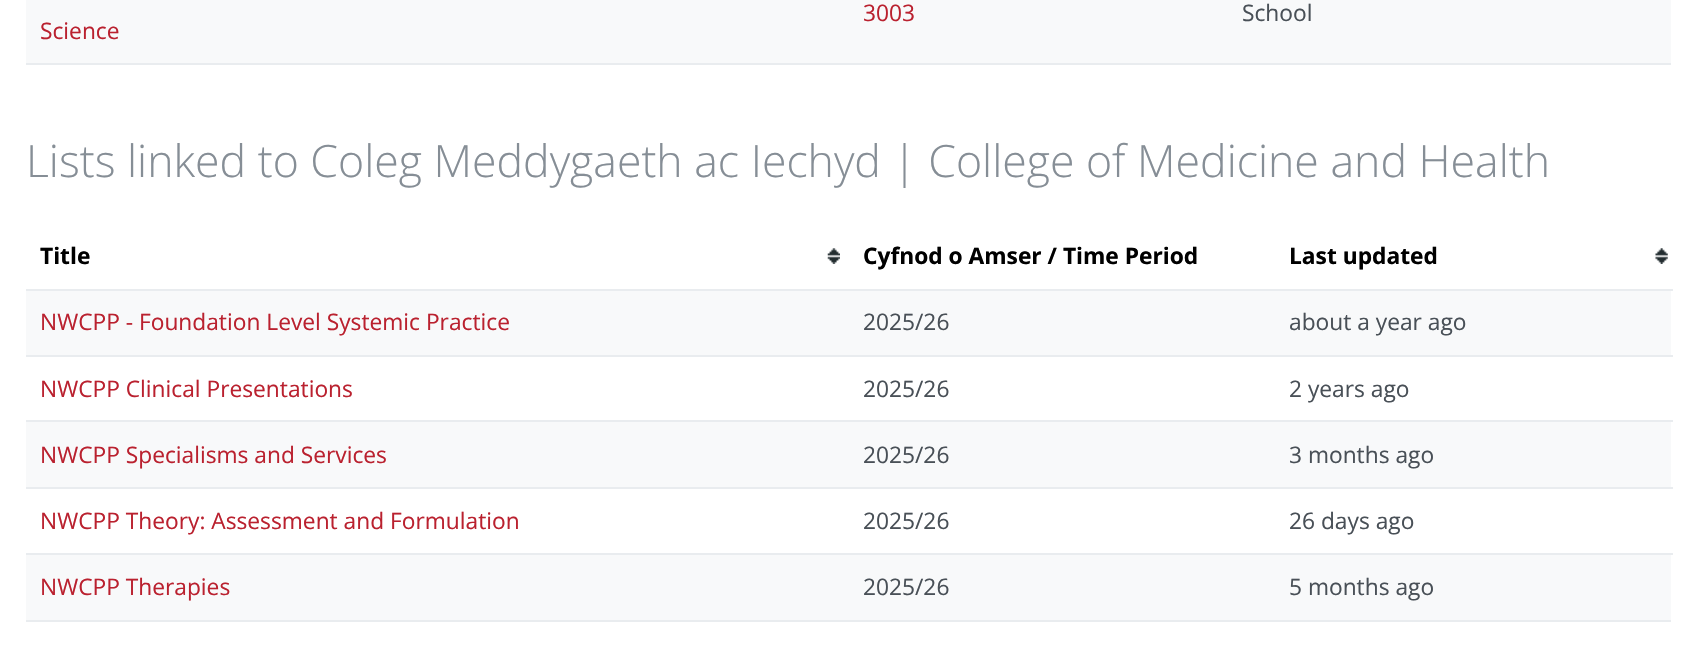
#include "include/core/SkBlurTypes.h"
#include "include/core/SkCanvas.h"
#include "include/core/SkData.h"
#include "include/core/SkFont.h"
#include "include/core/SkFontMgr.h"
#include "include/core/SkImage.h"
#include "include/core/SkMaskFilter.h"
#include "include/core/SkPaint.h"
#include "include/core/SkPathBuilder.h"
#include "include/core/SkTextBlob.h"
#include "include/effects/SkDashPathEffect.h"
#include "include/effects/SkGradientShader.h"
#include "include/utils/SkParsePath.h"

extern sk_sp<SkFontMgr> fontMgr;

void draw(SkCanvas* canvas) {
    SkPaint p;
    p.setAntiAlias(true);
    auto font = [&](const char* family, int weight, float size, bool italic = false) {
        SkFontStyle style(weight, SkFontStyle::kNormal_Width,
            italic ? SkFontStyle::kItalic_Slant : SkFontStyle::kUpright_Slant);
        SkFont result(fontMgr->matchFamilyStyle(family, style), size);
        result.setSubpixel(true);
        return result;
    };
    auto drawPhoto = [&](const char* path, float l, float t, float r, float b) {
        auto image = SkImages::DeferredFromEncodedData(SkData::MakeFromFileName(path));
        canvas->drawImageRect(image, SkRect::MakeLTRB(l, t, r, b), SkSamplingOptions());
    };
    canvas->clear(0xFFFFFFFF);
    p.setColor(0xFFE9ECEF);
    canvas->drawRect(SkRect::MakeLTRB(26, 63, 1671, 65), p);
    p.setColor(0xFFF8F9FA);
    canvas->drawRect(SkRect::MakeLTRB(26, 0, 1671, 63), p);
    auto font1 = font("Open Sans", 400, 22.75f);
    p.setColor(0xFFBA212F);
    canvas->drawString("3003", 863, 21, font1, p);
    p.setColor(0xFF495057);
    canvas->drawString("School", 1242, 21, font1, p);
    p.setColor(0xFFBA212F);
    canvas->drawString("Science", 40, 39, font1, p);
    auto font2 = font("Open Sans", 300, 44.6f);
    p.setColor(0xFF868E96);
    canvas->drawString("Lists linked to Coleg Meddygaeth ac Iechyd | College of Medicine and Health", 26, 177, font2, p);
    p.setColor(0xFFE9ECEF);
    canvas->drawRect(SkRect::MakeLTRB(26, 620, 1671, 622), p);
    drawPhoto("media/1.png", 827, 248, 840, 264);
    auto font3 = font("Open Sans", 700, 22.75f);
    p.setColor(0xFF000000);
    canvas->drawString("Title", 40, 264, font3, p);
    canvas->drawString("Cyfnod o Amser / Time Period", 863, 264, font3, p);
    drawPhoto("media/2.png", 1655, 248, 1668, 264);
    canvas->drawString("Last updated", 1289, 264, font3, p);
    p.setColor(0xFFF8F9FA);
    canvas->drawRect(SkRect::MakeLTRB(26, 291, 1671, 355), p);
    p.setColor(0xFFBA212F);
    canvas->drawString("NWCPP - Foundation Level Systemic Practice", 40, 330, font1, p);
    p.setColor(0xFF495057);
    canvas->drawString("2025/26", 863, 330, font1, p);
    p.setColor(0xFFE9ECEF);
    canvas->drawRect(SkRect::MakeLTRB(26, 289, 1673, 291), p);
    p.setColor(0xFF495057);
    canvas->drawString("about a year ago", 1289, 330, font1, p);
    p.setColor(0xFFBA212F);
    canvas->drawString("NWCPP Clinical Presentations", 40, 397, font1, p);
    p.setColor(0xFF495057);
    canvas->drawString("2025/26", 863, 397, font1, p);
    p.setColor(0xFFE9ECEF);
    canvas->drawRect(SkRect::MakeLTRB(26, 355, 1673, 357), p);
    p.setColor(0xFF495057);
    canvas->drawString("2 years ago", 1289, 397, font1, p);
    p.setColor(0xFFF8F9FA);
    canvas->drawRect(SkRect::MakeLTRB(26, 422, 1671, 487), p);
    p.setColor(0xFFBA212F);
    canvas->drawString("NWCPP Specialisms and Services", 40, 463, font1, p);
    p.setColor(0xFF495057);
    canvas->drawString("2025/26", 863, 463, font1, p);
    p.setColor(0xFFE9ECEF);
    canvas->drawRect(SkRect::MakeLTRB(26, 420, 1673, 422), p);
    p.setColor(0xFF495057);
    canvas->drawString("3 months ago", 1289, 463, font1, p);
    p.setColor(0xFFBA212F);
    canvas->drawString("NWCPP Theory: Assessment and Formulation", 40, 529, font1, p);
    p.setColor(0xFF495057);
    canvas->drawString("2025/26", 863, 529, font1, p);
    p.setColor(0xFFE9ECEF);
    canvas->drawRect(SkRect::MakeLTRB(26, 487, 1673, 489), p);
    p.setColor(0xFF495057);
    canvas->drawString("26 days ago", 1289, 529, font1, p);
    p.setColor(0xFFF8F9FA);
    canvas->drawRect(SkRect::MakeLTRB(26, 555, 1671, 620), p);
    p.setColor(0xFFBA212F);
    canvas->drawString("NWCPP Therapies", 40, 595, font1, p);
    p.setColor(0xFF495057);
    canvas->drawString("2025/26", 863, 595, font1, p);
    p.setColor(0xFFE9ECEF);
    canvas->drawRect(SkRect::MakeLTRB(26, 553, 1673, 555), p);
    p.setColor(0xFF495057);
    canvas->drawString("5 months ago", 1289, 595, font1, p);
}
